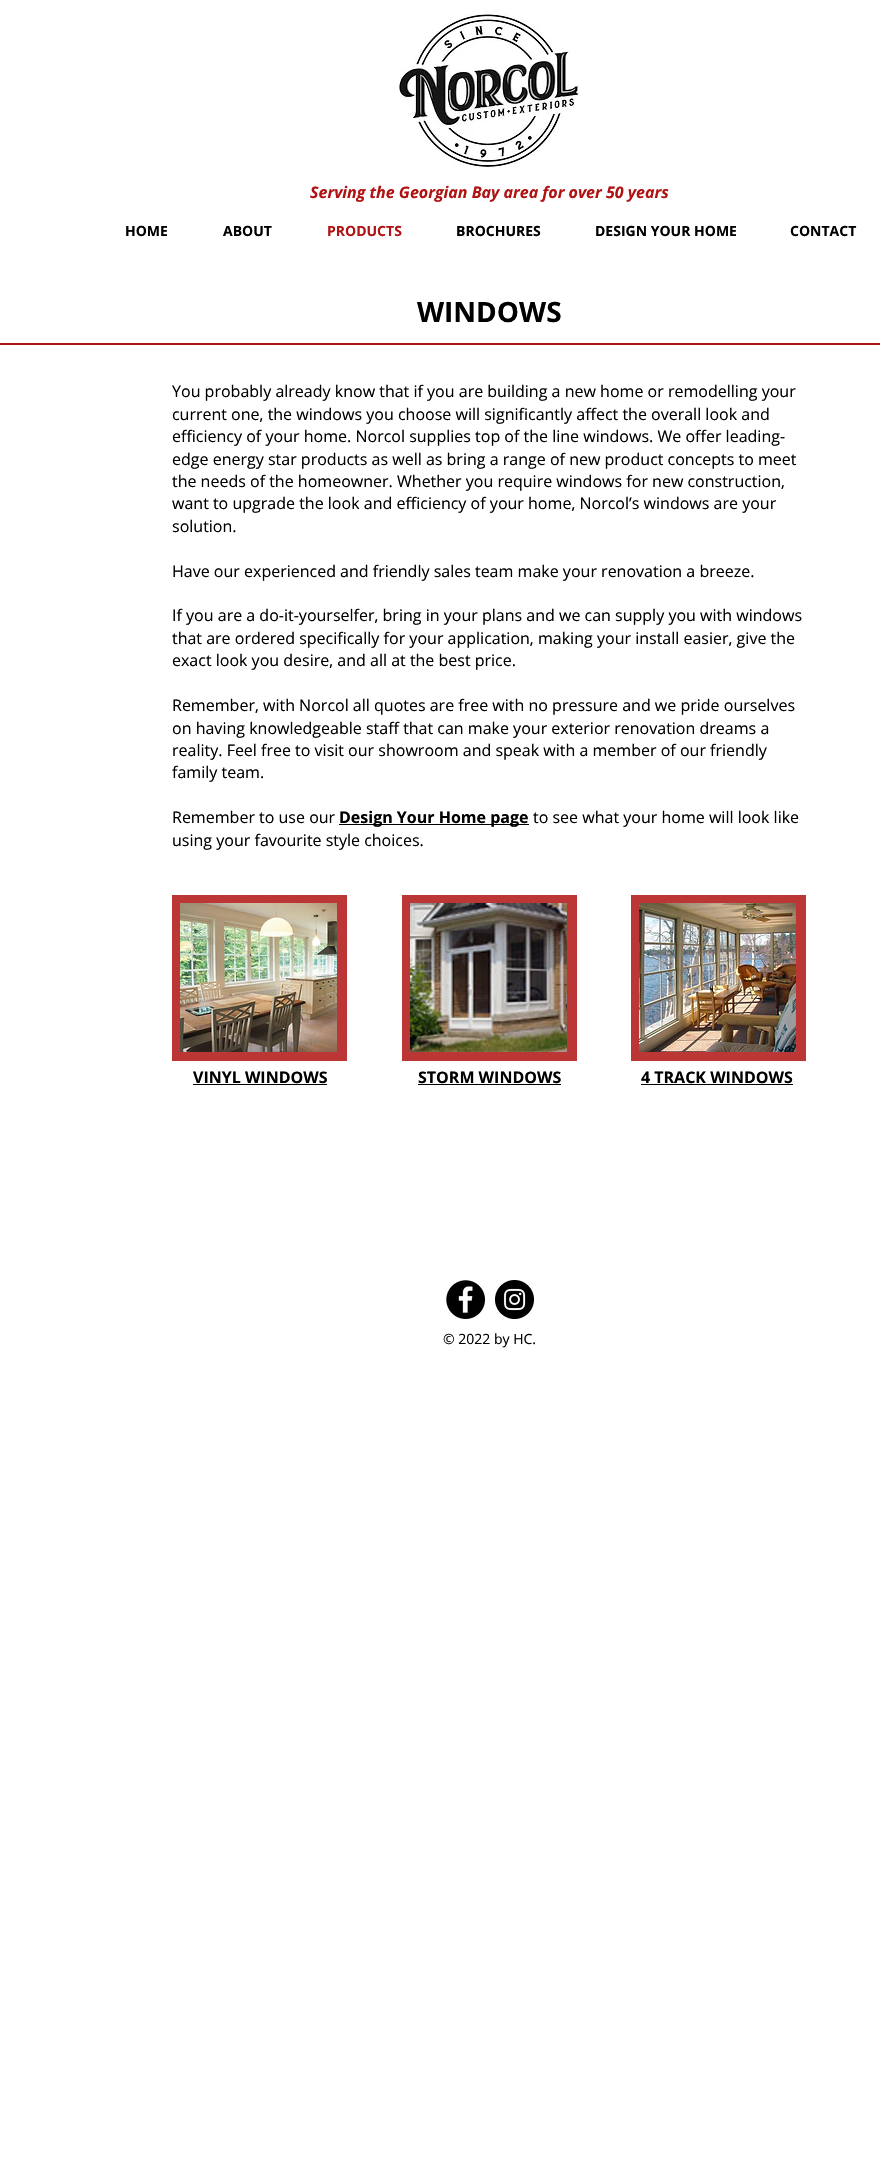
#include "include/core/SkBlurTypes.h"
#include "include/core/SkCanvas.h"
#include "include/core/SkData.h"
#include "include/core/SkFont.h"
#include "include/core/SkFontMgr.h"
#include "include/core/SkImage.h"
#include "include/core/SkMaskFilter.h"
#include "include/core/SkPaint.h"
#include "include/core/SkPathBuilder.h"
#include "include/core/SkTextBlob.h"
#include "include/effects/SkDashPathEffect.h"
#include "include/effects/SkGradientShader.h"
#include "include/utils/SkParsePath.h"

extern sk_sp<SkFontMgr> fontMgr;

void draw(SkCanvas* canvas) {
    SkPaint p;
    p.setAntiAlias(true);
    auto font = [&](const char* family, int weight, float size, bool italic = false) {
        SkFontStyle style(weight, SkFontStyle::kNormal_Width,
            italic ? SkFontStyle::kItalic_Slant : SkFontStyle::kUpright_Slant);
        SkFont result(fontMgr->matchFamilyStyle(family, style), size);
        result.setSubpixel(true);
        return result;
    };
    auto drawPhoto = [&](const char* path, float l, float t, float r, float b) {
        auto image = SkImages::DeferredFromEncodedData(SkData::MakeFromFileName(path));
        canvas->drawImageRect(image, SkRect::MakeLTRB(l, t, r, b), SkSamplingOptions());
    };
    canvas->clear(0xFFFFFFFF);
    drawPhoto("media/1.png", 399, 14, 579, 169);
    auto font1 = font("Open Sans", 700, 16, true);
    p.setColor(0xFFB01313);
    canvas->drawString("Serving the Georgian Bay area for over 50 years", 310, 198, font1, p);
    auto font2 = font("Open Sans", 700, 14);
    p.setColor(0xFF000000);
    canvas->drawString("HOME", 125, 236, font2, p);
    canvas->drawString("ABOUT", 223, 236, font2, p);
    p.setColor(0xFFB01313);
    canvas->drawString("PRODUCTS", 327, 236, font2, p);
    p.setColor(0xFF000000);
    {
        const struct { const char* s; float x, y; } items[] = {
            {"BROCHURES", 456, 236},
            {"DESIGN YOUR HOME", 595, 236},
            {"CONTACT", 790, 236},
        };
        for (auto [s, x, y] : items) {
            canvas->drawString(s, x, y, font2, p);
        }
    }
    auto font3 = font("Open Sans", 700, 28);
    canvas->drawString("WINDOWS", 417, 322, font3, p);
    p.setColor(0xFFB01313);
    canvas->drawRect(SkRect::MakeLTRB(0, 343, 880, 345), p);
    auto font4 = font("Open Sans", 400, 16);
    p.setColor(0xFF000000);
    {
        const struct { const char* s; float x, y; } items[] = {
            {"You probably already know that if you are building a new home or remodelling your", 172, 397},
            {"current one, the windows you choose will significantly affect the overall look and", 172, 420},
            {"efficiency of your home. Norcol supplies top of the line windows. We offer leading-", 172, 442},
            {"edge energy star products as well as bring a range of new product concepts to meet", 172, 465},
            {"the needs of the homeowner. Whether you require windows for new construction,", 172, 487},
            {"want to upgrade the look and efficiency of your home, Norcol’s windows are your", 172, 509},
            {"solution.", 172, 532},
            {"Have our experienced and friendly sales team make your renovation a breeze.", 172, 577},
            {"If you are a do-it-yourselfer, bring in your plans and we can supply you with windows", 172, 621},
            {"that are ordered specifically for your application, making your install easier, give the", 172, 644},
            {"exact look you desire, and all at the best price.", 172, 666},
            {"Remember, with Norcol all quotes are free with no pressure and we pride ourselves", 172, 711},
            {"on having knowledgeable staff that can make your exterior renovation dreams a", 172, 734},
            {"reality. Feel free to visit our showroom and speak with a member of our friendly", 172, 756},
            {"family team.", 172, 778},
            {"Remember to use our", 172, 823},
        };
        for (auto [s, x, y] : items) {
            canvas->drawString(s, x, y, font4, p);
        }
    }
    canvas->drawRect(SkRect::MakeLTRB(339, 824, 529, 825), p);
    auto font5 = font("Open Sans", 700, 16);
    canvas->drawString("Design Your Home page", 339, 823, font5, p);
    canvas->drawString("to see what your home will look like", 533, 823, font4, p);
    canvas->drawString("using your favourite style choices.", 172, 846, font4, p);
    p.setColor(0xFFBC3636);
    canvas->drawRect(SkRect::MakeLTRB(172, 895, 347, 1061), p);
    drawPhoto("media/2.png", 180, 903, 337, 1052);
    canvas->drawRect(SkRect::MakeLTRB(402, 895, 577, 1061), p);
    drawPhoto("media/3.png", 410, 903, 567, 1052);
    canvas->drawRect(SkRect::MakeLTRB(631, 895, 806, 1061), p);
    drawPhoto("media/4.png", 639, 903, 796, 1052);
    p.setColor(0xFF000000);
    canvas->drawString("VINYL WINDOWS", 193, 1083, font5, p);
    canvas->drawRect(SkRect::MakeLTRB(193, 1084, 327, 1085), p);
    canvas->drawString("STORM WINDOWS", 418, 1083, font5, p);
    canvas->drawRect(SkRect::MakeLTRB(418, 1084, 561, 1085), p);
    canvas->drawString("4 TRACK WINDOWS", 641, 1083, font5, p);
    canvas->drawRect(SkRect::MakeLTRB(641, 1084, 793, 1085), p);
    drawPhoto("media/5.png", 446, 1280, 485, 1319);
    drawPhoto("media/6.png", 495, 1280, 534, 1319);
    auto font6 = font("Open Sans", 400, 14);
    canvas->drawString("© 2022 by HC.", 443, 1344, font6, p);
}
